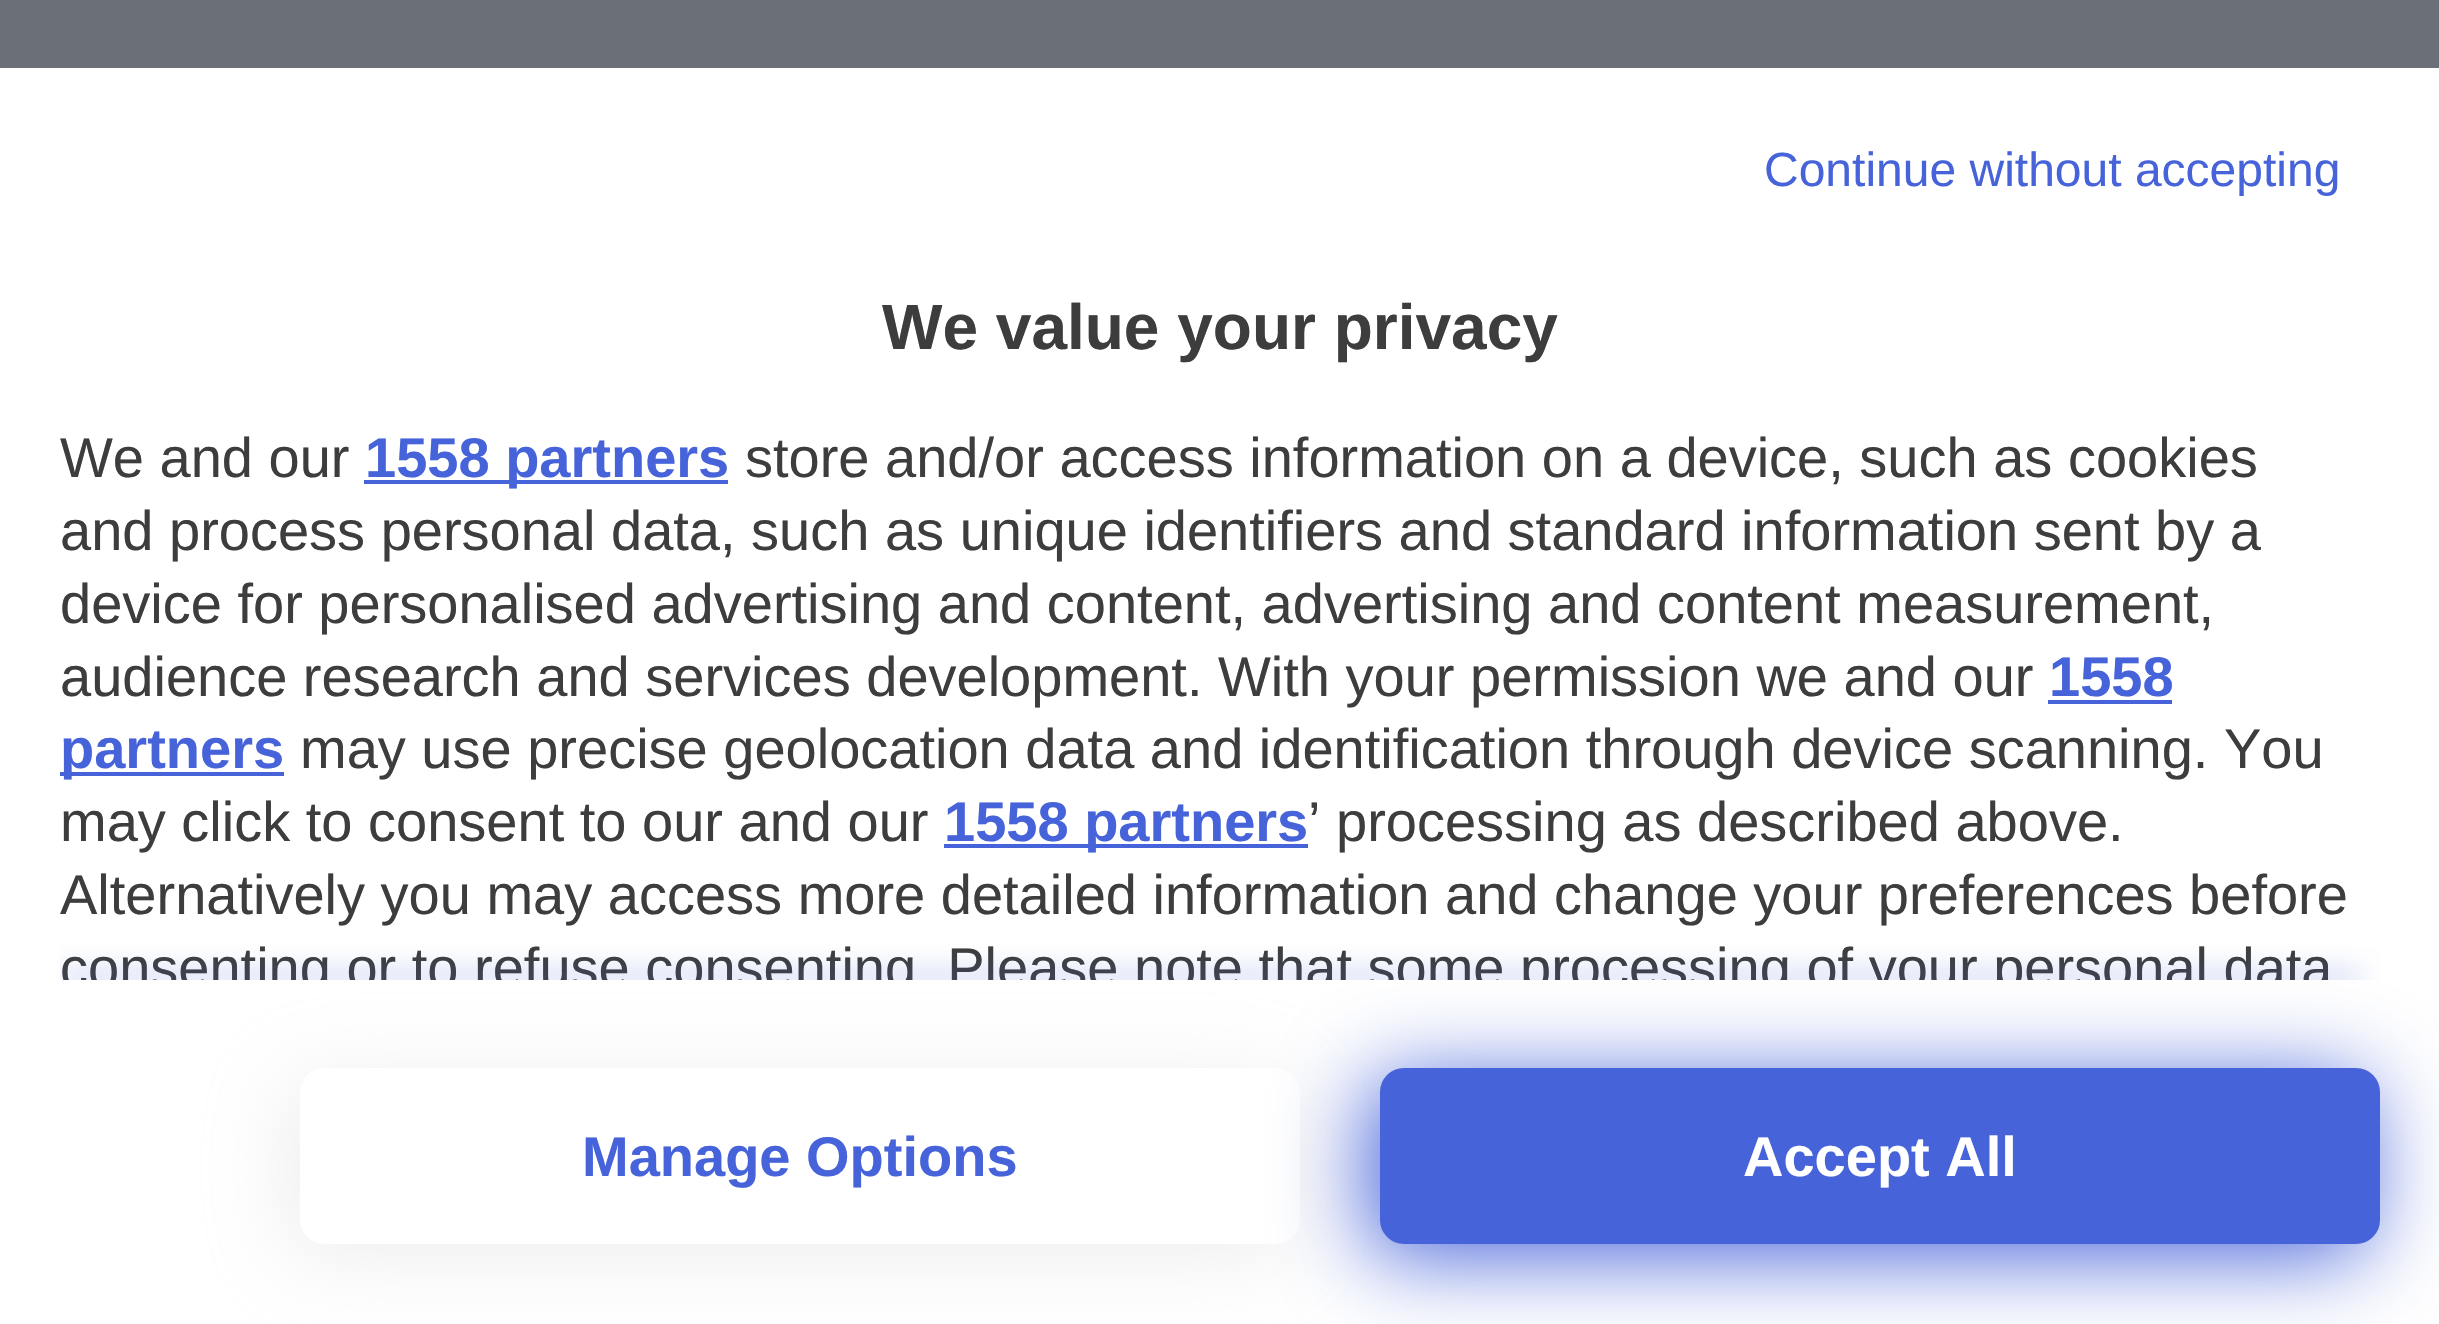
#include "include/core/SkBlurTypes.h"
#include "include/core/SkCanvas.h"
#include "include/core/SkData.h"
#include "include/core/SkFont.h"
#include "include/core/SkFontMgr.h"
#include "include/core/SkImage.h"
#include "include/core/SkMaskFilter.h"
#include "include/core/SkPaint.h"
#include "include/core/SkPathBuilder.h"
#include "include/core/SkTextBlob.h"
#include "include/effects/SkDashPathEffect.h"
#include "include/effects/SkGradientShader.h"
#include "include/utils/SkParsePath.h"

extern sk_sp<SkFontMgr> fontMgr;

void draw(SkCanvas* canvas) {
    SkPaint p;
    p.setAntiAlias(true);
    auto font = [&](const char* family, int weight, float size, bool italic = false) {
        SkFontStyle style(weight, SkFontStyle::kNormal_Width,
            italic ? SkFontStyle::kItalic_Slant : SkFontStyle::kUpright_Slant);
        SkFont result(fontMgr->matchFamilyStyle(family, style), size);
        result.setSubpixel(true);
        return result;
    };
    canvas->clear(0xFF6B7078);
    p.setColor(0xFFFFFFFF);
    canvas->drawRect(SkRect::MakeLTRB(0, 68, 2439, 1324), p);
    auto font1 = font("Liberation Sans", 400, 48);
    p.setColor(0xFF4663DA);
    canvas->drawString("Continue without accepting", 1764, 186, font1, p);
    auto font2 = font("Liberation Sans", 700, 64);
    p.setColor(0xFF3D3D3D);
    canvas->drawString("We value your privacy", 882, 349, font2, p);
    auto font3 = font("Liberation Sans", 400, 56);
    canvas->drawString("We and our", 60, 477, font3, p);
    p.setColor(0xFF4663DA);
    canvas->drawRect(SkRect::MakeLTRB(364, 480, 728, 484), p);
    auto font4 = font("Liberation Sans", 700, 56);
    canvas->drawString("1558 partners", 365, 477, font4, p);
    p.setColor(0xFF3D3D3D);
    {
        const struct { const char* s; float x, y; } items[] = {
            {"store and/or access information on a device, such as cookies", 745, 477},
            {"and process personal data, such as unique identifiers and standard information sent by a", 60, 550},
            {"device for personalised advertising and content, advertising and content measurement,", 60, 623},
            {"audience research and services development. With your permission we and our", 60, 696},
        };
        for (auto [s, x, y] : items) {
            canvas->drawString(s, x, y, font3, p);
        }
    }
    p.setColor(0xFF4663DA);
    canvas->drawString("1558", 2049, 696, font4, p);
    canvas->drawRect(SkRect::MakeLTRB(2048, 700, 2172, 704), p);
    canvas->drawRect(SkRect::MakeLTRB(60, 772, 284, 776), p);
    canvas->drawString("partners", 60, 768, font4, p);
    p.setColor(0xFF3D3D3D);
    canvas->drawString("may use precise geolocation data and identification through device scanning. You", 300, 768, font3, p);
    canvas->drawString("may click to consent to our and our", 60, 841, font3, p);
    p.setColor(0xFF4663DA);
    canvas->drawRect(SkRect::MakeLTRB(944, 844, 1308, 848), p);
    canvas->drawString("1558 partners", 944, 841, font4, p);
    p.setColor(0xFF3D3D3D);
    canvas->drawString("’ processing as described above.", 1308, 841, font3, p);
    canvas->drawString("Alternatively you may access more detailed information and change your preferences before", 60, 914, font3, p);
    canvas->save();
    canvas->clipRect(SkRect::MakeLTRB(60, 416, 2380, 980));
    canvas->drawString("consenting or to refuse consenting. Please note that some processing of your personal data", 60, 987, font3, p);
    canvas->restore();
    canvas->save();
    canvas->clipRect(SkRect::MakeLTRB(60, 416, 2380, 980));
    p.setColor(0xFF4663DA);
    p.setMaskFilter(SkMaskFilter::MakeBlur(kNormal_SkBlurStyle, 14));
    canvas->drawRect(SkRect::MakeLTRB(60, 976, 2360, 980), p);
    p.setMaskFilter(nullptr);
    canvas->restore();
    p.setColor(0x4DC4C4C4);
    p.setMaskFilter(SkMaskFilter::MakeBlur(kNormal_SkBlurStyle, 44));
    canvas->drawRoundRect(SkRect::MakeLTRB(288, 1080, 1288, 1256), 24, 24, p);
    p.setMaskFilter(nullptr);
    p.setColor(0xFFFFFFFF);
    canvas->drawRoundRect(SkRect::MakeLTRB(300, 1068, 1300, 1244), 24, 24, p);
    p.setColor(0xFF4663DA);
    canvas->drawString("Manage Options", 582, 1176, font4, p);
    p.setMaskFilter(SkMaskFilter::MakeBlur(kNormal_SkBlurStyle, 44));
    canvas->drawRoundRect(SkRect::MakeLTRB(1368, 1080, 2368, 1256), 24, 24, p);
    p.setMaskFilter(nullptr);
    canvas->drawRoundRect(SkRect::MakeLTRB(1380, 1068, 2380, 1244), 24, 24, p);
    p.setColor(0xFFFFFFFF);
    canvas->drawString("Accept All", 1743, 1176, font4, p);
}
